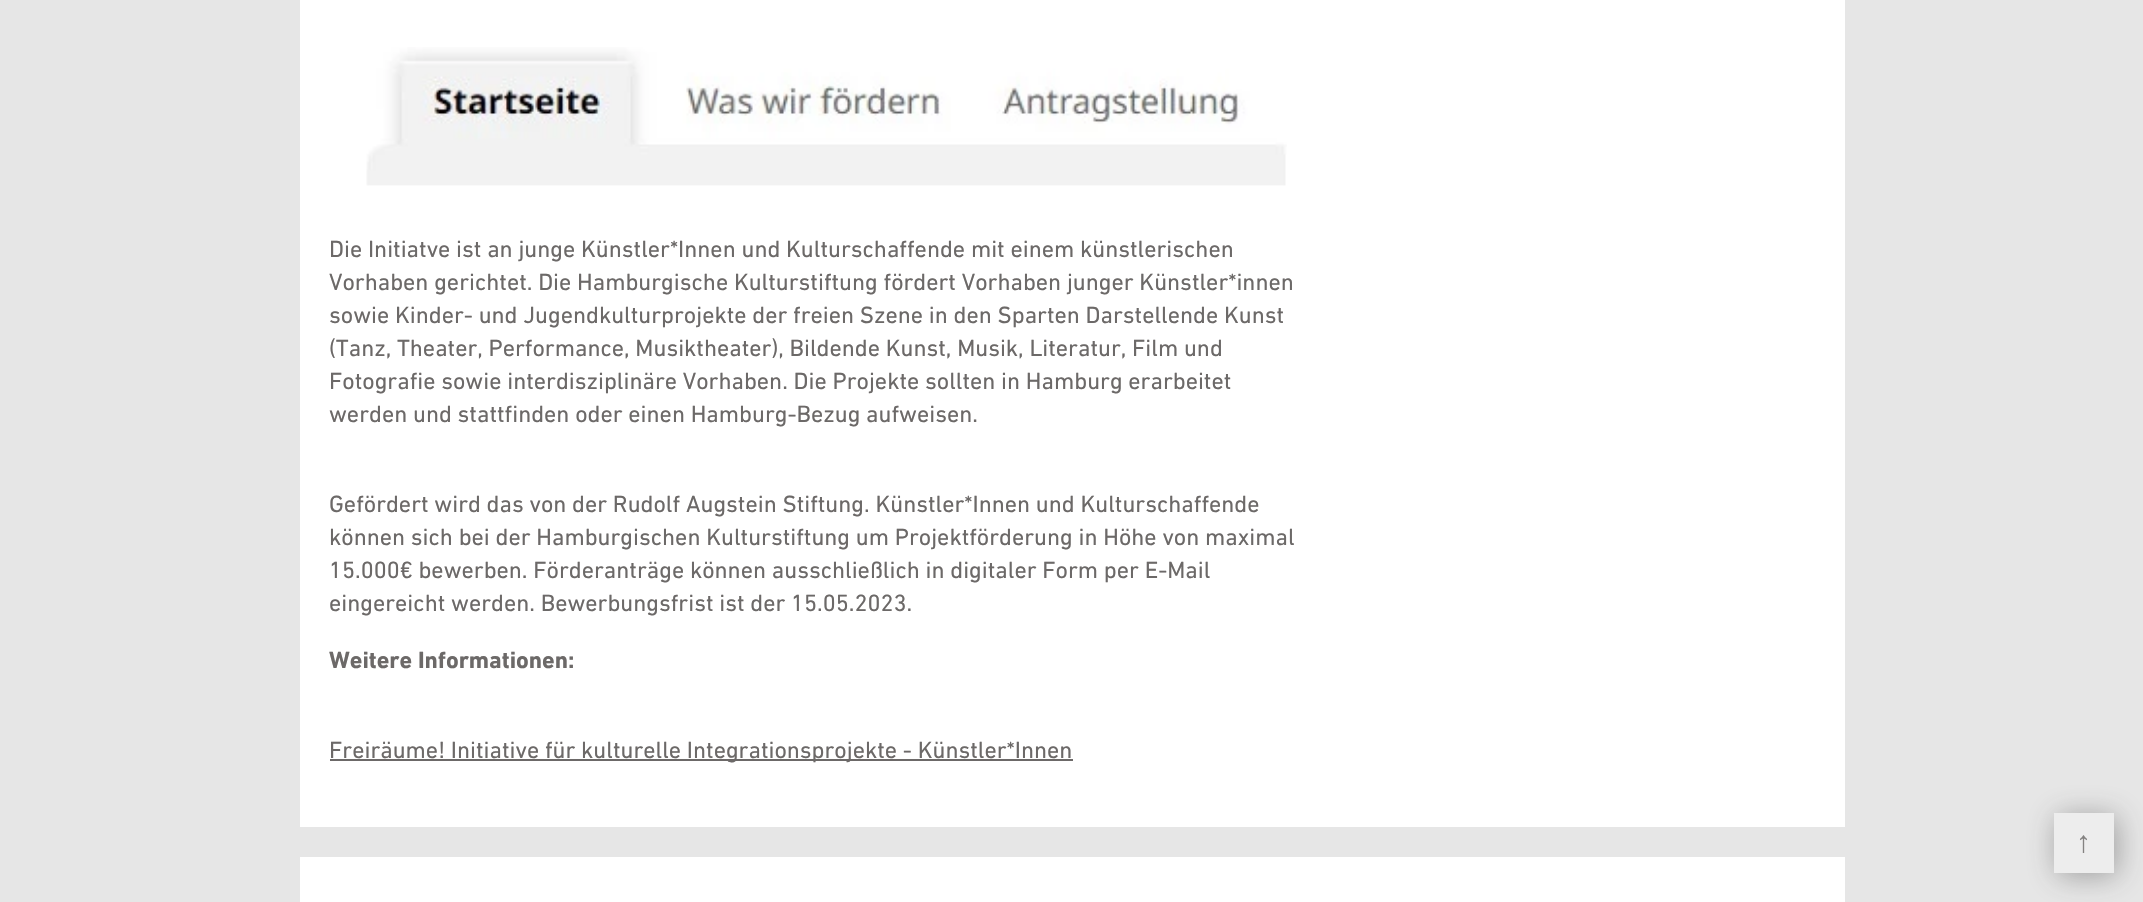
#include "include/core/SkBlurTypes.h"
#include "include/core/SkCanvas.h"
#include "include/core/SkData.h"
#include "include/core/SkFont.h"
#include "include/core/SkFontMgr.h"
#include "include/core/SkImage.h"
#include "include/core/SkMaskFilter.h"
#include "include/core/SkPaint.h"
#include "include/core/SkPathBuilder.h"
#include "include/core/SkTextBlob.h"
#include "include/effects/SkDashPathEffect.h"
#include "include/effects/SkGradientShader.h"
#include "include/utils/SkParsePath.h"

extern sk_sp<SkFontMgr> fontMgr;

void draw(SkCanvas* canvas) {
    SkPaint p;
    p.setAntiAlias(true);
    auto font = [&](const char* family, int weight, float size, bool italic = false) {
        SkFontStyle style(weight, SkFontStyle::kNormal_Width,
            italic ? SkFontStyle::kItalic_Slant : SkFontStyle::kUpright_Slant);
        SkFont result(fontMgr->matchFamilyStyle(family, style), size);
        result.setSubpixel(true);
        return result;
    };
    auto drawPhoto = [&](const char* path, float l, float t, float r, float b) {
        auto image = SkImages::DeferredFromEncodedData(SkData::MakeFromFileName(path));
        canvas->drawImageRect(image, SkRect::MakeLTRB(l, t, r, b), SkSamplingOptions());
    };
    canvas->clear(0xFFE6E6E6);
    p.setColor(0xFFFFFFFF);
    canvas->drawRect(SkRect::MakeLTRB(300, 0, 1845, 827), p);
    drawPhoto("media/1.png", 366, 47, 1287, 186);
    auto font1 = font("DIN Next", 400, 24);
    p.setColor(0xFF6C6968);
    {
        const struct { const char* s; float x, y; } items[] = {
            {"Die Initiatve ist an junge Künstler*Innen und Kulturschaffende mit einem künstlerischen", 329, 257},
            {"Vorhaben gerichtet. Die Hamburgische Kulturstiftung fördert Vorhaben junger Künstler*innen", 329, 290},
            {"sowie Kinder- und Jugendkulturprojekte der freien Szene in den Sparten Darstellende Kunst", 329, 323},
            {"(Tanz, Theater, Performance, Musiktheater), Bildende Kunst, Musik, Literatur, Film und", 329, 356},
            {"Fotografie sowie interdisziplinäre Vorhaben. Die Projekte sollten in Hamburg erarbeitet", 329, 389},
            {"werden und stattfinden oder einen Hamburg-Bezug aufweisen.", 329, 422},
            {"Gefördert wird das von der Rudolf Augstein Stiftung. Künstler*Innen und Kulturschaffende", 329, 512},
            {"können sich bei der Hamburgischen Kulturstiftung um Projektförderung in Höhe von maximal", 329, 545},
            {"15.000€ bewerben. Förderanträge können ausschließlich in digitaler Form per E-Mail", 329, 578},
            {"eingereicht werden. Bewerbungsfrist ist der 15.05.2023.", 329, 611},
        };
        for (auto [s, x, y] : items) {
            canvas->drawString(s, x, y, font1, p);
        }
    }
    auto font2 = font("DIN Next", 700, 24);
    canvas->drawString("Weitere Informationen:", 329, 668, font2, p);
    canvas->drawRect(SkRect::MakeLTRB(330, 759, 1073, 761), p);
    canvas->drawString("Freiräume! Initiative für kulturelle Integrationsprojekte - Künstler*Innen", 329, 758, font1, p);
    p.setColor(0x662E2E2E);
    p.setMaskFilter(SkMaskFilter::MakeBlur(kNormal_SkBlurStyle, 15));
    canvas->drawRect(SkRect::MakeLTRB(2057, 816, 2117, 876), p);
    p.setMaskFilter(nullptr);
    p.setColor(0xFFEDEDED);
    canvas->drawRect(SkRect::MakeLTRB(2054, 813, 2114, 873), p);
    auto font3 = font("Liberation Sans", 400, 30);
    p.setColor(0xFF848281);
    canvas->drawString("↑", 2076, 852, font3, p);
    p.setColor(0xFFFFFFFF);
    canvas->drawRect(SkRect::MakeLTRB(300, 857, 1845, 902), p);
}
